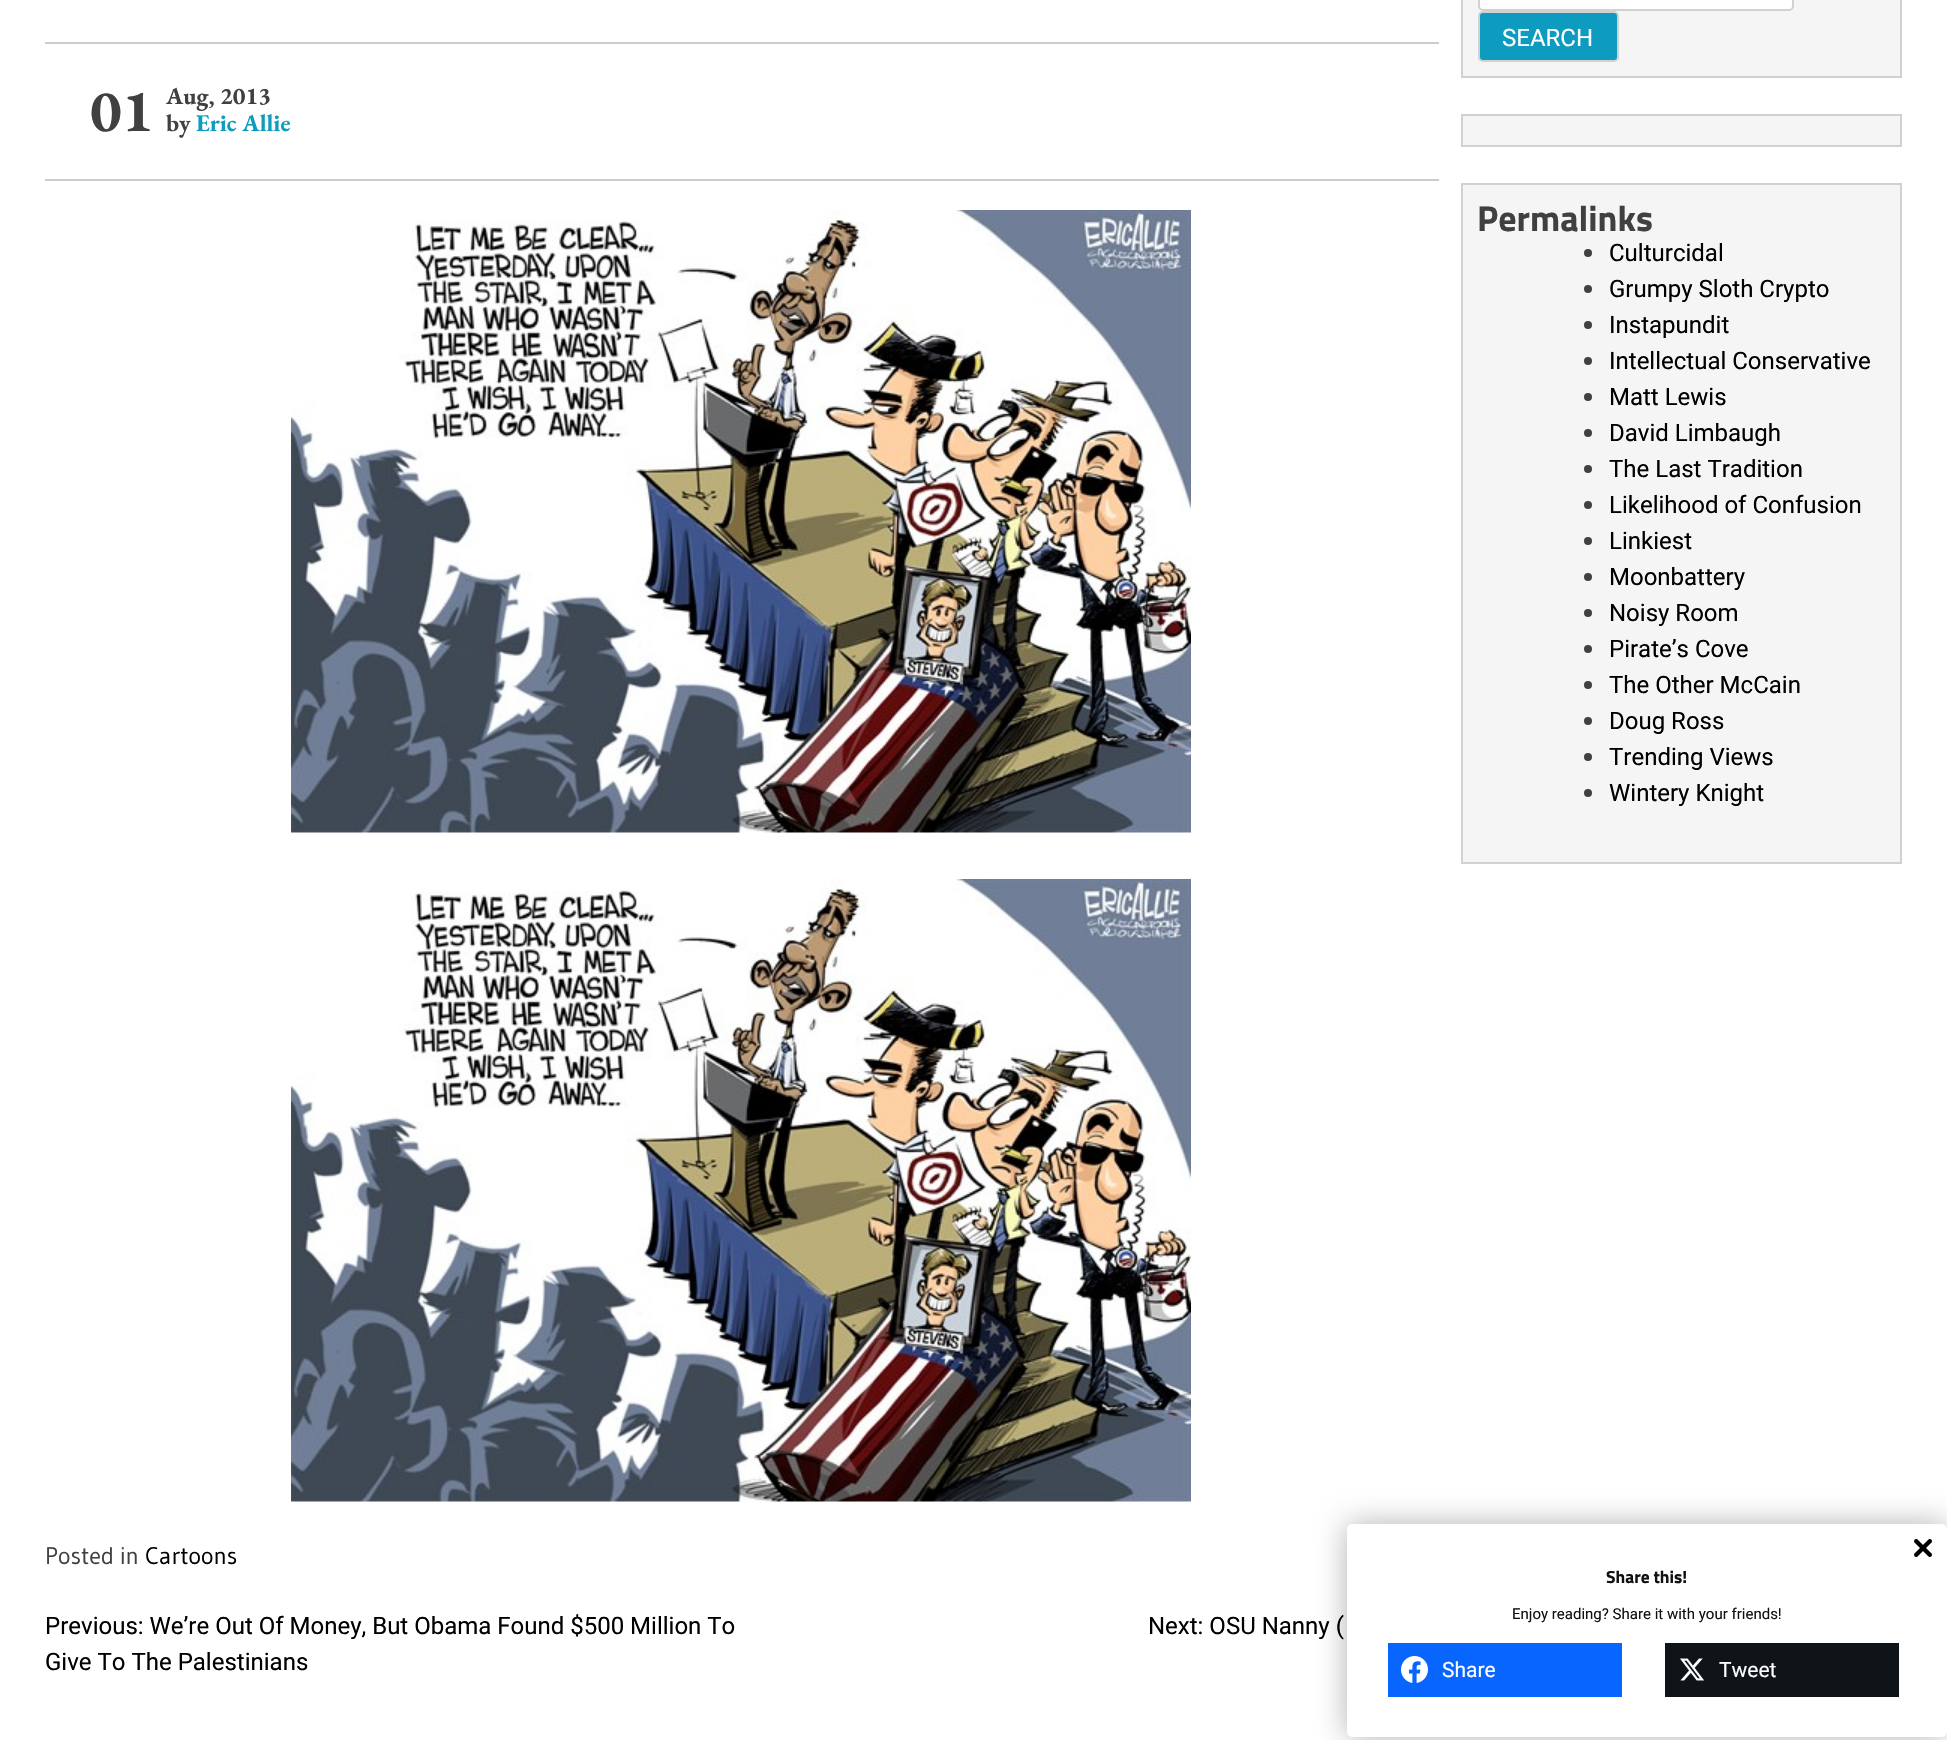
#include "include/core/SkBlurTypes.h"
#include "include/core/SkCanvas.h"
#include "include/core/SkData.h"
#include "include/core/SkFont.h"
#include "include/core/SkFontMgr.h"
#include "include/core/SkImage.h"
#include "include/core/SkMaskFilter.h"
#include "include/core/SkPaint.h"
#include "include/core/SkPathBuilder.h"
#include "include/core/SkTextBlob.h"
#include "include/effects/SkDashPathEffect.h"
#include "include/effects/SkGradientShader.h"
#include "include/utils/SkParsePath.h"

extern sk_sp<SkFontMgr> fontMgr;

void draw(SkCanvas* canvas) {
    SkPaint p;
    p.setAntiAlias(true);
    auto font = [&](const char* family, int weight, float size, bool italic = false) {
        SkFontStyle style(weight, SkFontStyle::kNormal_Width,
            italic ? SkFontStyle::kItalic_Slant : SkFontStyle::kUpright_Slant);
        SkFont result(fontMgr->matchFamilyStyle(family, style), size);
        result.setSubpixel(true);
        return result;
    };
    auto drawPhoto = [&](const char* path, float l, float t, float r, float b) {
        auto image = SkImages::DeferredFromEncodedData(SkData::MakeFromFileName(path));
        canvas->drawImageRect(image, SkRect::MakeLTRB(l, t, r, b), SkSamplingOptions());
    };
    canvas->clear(0xFFFFFFFF);
    p.setColor(0xFFCCCCCC);
    canvas->drawRect(SkRect::MakeLTRB(45, 42, 1439, 44), p);
    canvas->drawRect(SkRect::MakeLTRB(45, 179, 1439, 181), p);
    auto font1 = font("EB Garamond", 700, 60);
    p.setColor(0xFF404040);
    canvas->drawString("01", 90, 131, font1, p);
    auto font2 = font("EB Garamond", 700, 24);
    canvas->drawString("Aug, 2013", 166, 104, font2, p);
    canvas->drawString("by", 166, 131, font2, p);
    p.setColor(0xFF0D9CBF);
    canvas->drawString("Eric Allie", 196, 131, font2, p);
    drawPhoto("media/1.png", 291, 210, 1191, 833);
    drawPhoto("media/1.png", 291, 879, 1191, 1502);
    auto font3 = font("Gudea", 400, 24);
    p.setColor(0xFF404040);
    canvas->drawString("Posted in", 45, 1564, font3, p);
    p.setColor(0xFF000000);
    canvas->drawString("Cartoons", 145, 1564, font3, p);
    auto font4 = font("Roboto", 400, 24);
    {
        const struct { const char* s; float x, y; } items[] = {
            {"Previous: We’re Out Of Money, But Obama Found $500 Million To", 45, 1634},
            {"Give To The Palestinians", 45, 1670},
            {"Next: OSU Nanny (", 1148, 1634},
        };
        for (auto [s, x, y] : items) {
            canvas->drawString(s, x, y, font4, p);
        }
    }
    p.setColor(0xFFF5F5F5);
    canvas->drawRect(SkRect::MakeLTRB(1462, -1, 1901, 77), p);
    p.setStyle(SkPaint::kStroke_Style);
    p.setStrokeWidth(2);
    p.setColor(0xFFD1D1D1);
    canvas->drawRect(SkRect::MakeLTRB(1462, -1, 1901, 77), p);
    p.setStyle(SkPaint::kFill_Style);
    p.setColor(0xFFFFFFFF);
    canvas->drawRoundRect(SkRect::MakeLTRB(1479, -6, 1793, 10), 4, 4, p);
    p.setStyle(SkPaint::kStroke_Style);
    p.setColor(0xFFD1D1D1);
    canvas->drawRoundRect(SkRect::MakeLTRB(1479, -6, 1793, 10), 4, 4, p);
    p.setStyle(SkPaint::kFill_Style);
    p.setColor(0xFF0D9CBF);
    canvas->drawRoundRect(SkRect::MakeLTRB(1479, 12, 1618, 61), 4, 4, p);
    p.setStyle(SkPaint::kStroke_Style);
    p.setColor(0xFFD1D1D1);
    canvas->drawRoundRect(SkRect::MakeLTRB(1479, 12, 1618, 61), 4, 4, p);
    p.setStyle(SkPaint::kFill_Style);
    p.setColor(0xFFFFFFFF);
    canvas->drawString("SEARCH", 1502, 46, font4, p);
    p.setColor(0xFFF5F5F5);
    canvas->drawRect(SkRect::MakeLTRB(1462, 115, 1901, 146), p);
    p.setStyle(SkPaint::kStroke_Style);
    p.setColor(0xFFD1D1D1);
    canvas->drawRect(SkRect::MakeLTRB(1462, 115, 1901, 146), p);
    p.setStyle(SkPaint::kFill_Style);
    p.setColor(0xFFF5F5F5);
    canvas->drawRect(SkRect::MakeLTRB(1462, 184, 1901, 863), p);
    p.setStyle(SkPaint::kStroke_Style);
    p.setColor(0xFFD1D1D1);
    canvas->drawRect(SkRect::MakeLTRB(1462, 184, 1901, 863), p);
    auto font5 = font("Titillium Web", 700, 36);
    p.setStyle(SkPaint::kFill_Style);
    p.setColor(0xFF404040);
    canvas->drawString("Permalinks", 1477, 231, font5, p);
    canvas->drawCircle(1588, 253, 4, p);
    p.setColor(0xFF000000);
    canvas->drawString("Culturcidal", 1609, 261, font4, p);
    p.setColor(0xFF404040);
    canvas->drawCircle(1588, 289, 4, p);
    p.setColor(0xFF000000);
    canvas->drawString("Grumpy Sloth Crypto", 1609, 297, font4, p);
    p.setColor(0xFF404040);
    canvas->drawCircle(1588, 325, 4, p);
    p.setColor(0xFF000000);
    canvas->drawString("Instapundit", 1609, 333, font4, p);
    p.setColor(0xFF404040);
    canvas->drawCircle(1588, 361, 4, p);
    p.setColor(0xFF000000);
    canvas->drawString("Intellectual Conservative", 1609, 369, font4, p);
    p.setColor(0xFF404040);
    canvas->drawCircle(1588, 397, 4, p);
    p.setColor(0xFF000000);
    canvas->drawString("Matt Lewis", 1609, 405, font4, p);
    p.setColor(0xFF404040);
    canvas->drawCircle(1588, 433, 4, p);
    p.setColor(0xFF000000);
    canvas->drawString("David Limbaugh", 1609, 441, font4, p);
    p.setColor(0xFF404040);
    canvas->drawCircle(1588, 469, 4, p);
    p.setColor(0xFF000000);
    canvas->drawString("The Last Tradition", 1609, 477, font4, p);
    p.setColor(0xFF404040);
    canvas->drawCircle(1588, 505, 4, p);
    p.setColor(0xFF000000);
    canvas->drawString("Likelihood of Confusion", 1609, 513, font4, p);
    p.setColor(0xFF404040);
    canvas->drawCircle(1588, 541, 4, p);
    p.setColor(0xFF000000);
    canvas->drawString("Linkiest", 1609, 549, font4, p);
    p.setColor(0xFF404040);
    canvas->drawCircle(1588, 577, 4, p);
    p.setColor(0xFF000000);
    canvas->drawString("Moonbattery", 1609, 585, font4, p);
    p.setColor(0xFF404040);
    canvas->drawCircle(1588, 613, 4, p);
    p.setColor(0xFF000000);
    canvas->drawString("Noisy Room", 1609, 621, font4, p);
    p.setColor(0xFF404040);
    canvas->drawCircle(1588, 649, 4, p);
    p.setColor(0xFF000000);
    canvas->drawString("Pirate’s Cove", 1609, 657, font4, p);
    p.setColor(0xFF404040);
    canvas->drawCircle(1588, 685, 4, p);
    p.setColor(0xFF000000);
    canvas->drawString("The Other McCain", 1609, 693, font4, p);
    p.setColor(0xFF404040);
    canvas->drawCircle(1588, 721, 4, p);
    p.setColor(0xFF000000);
    canvas->drawString("Doug Ross", 1609, 729, font4, p);
    p.setColor(0xFF404040);
    canvas->drawCircle(1588, 757, 4, p);
    p.setColor(0xFF000000);
    canvas->drawString("Trending Views", 1609, 765, font4, p);
    p.setColor(0xFF404040);
    canvas->drawCircle(1588, 793, 4, p);
    p.setColor(0xFF000000);
    canvas->drawString("Wintery Knight", 1609, 801, font4, p);
    p.setColor(0x4D000000);
    p.setMaskFilter(SkMaskFilter::MakeBlur(kNormal_SkBlurStyle, 15));
    canvas->drawRoundRect(SkRect::MakeLTRB(1347, 1524, 1947, 1737), 5, 5, p);
    p.setMaskFilter(nullptr);
    p.setColor(0xFFFFFFFF);
    canvas->drawRoundRect(SkRect::MakeLTRB(1347, 1524, 1947, 1737), 5, 5, p);
    drawPhoto("media/2.png", 1914, 1539, 1932, 1557);
    auto font6 = font("Titillium Web", 700, 17.5f);
    p.setColor(0xFF111111);
    canvas->drawString("Share this!", 1606, 1583, font6, p);
    auto font7 = font("Roboto", 400, 15);
    canvas->drawString("Enjoy reading? Share it with your friends!", 1512, 1619, font7, p);
    p.setColor(0xFF0866FF);
    canvas->drawRect(SkRect::MakeLTRB(1388, 1643, 1622, 1697), p);
    drawPhoto("media/3.png", 1401, 1656, 1428, 1683);
    auto font8 = font("Roboto", 400, 21);
    p.setColor(0xFFFFFFFF);
    canvas->drawString("Share", 1442, 1677, font8, p);
    p.setColor(0xFF0F1419);
    canvas->drawRect(SkRect::MakeLTRB(1665, 1643, 1899, 1697), p);
    drawPhoto("media/4.png", 1680, 1658, 1704, 1681);
    p.setColor(0xFFFFFFFF);
    canvas->drawString("Tweet", 1719, 1677, font8, p);
}
